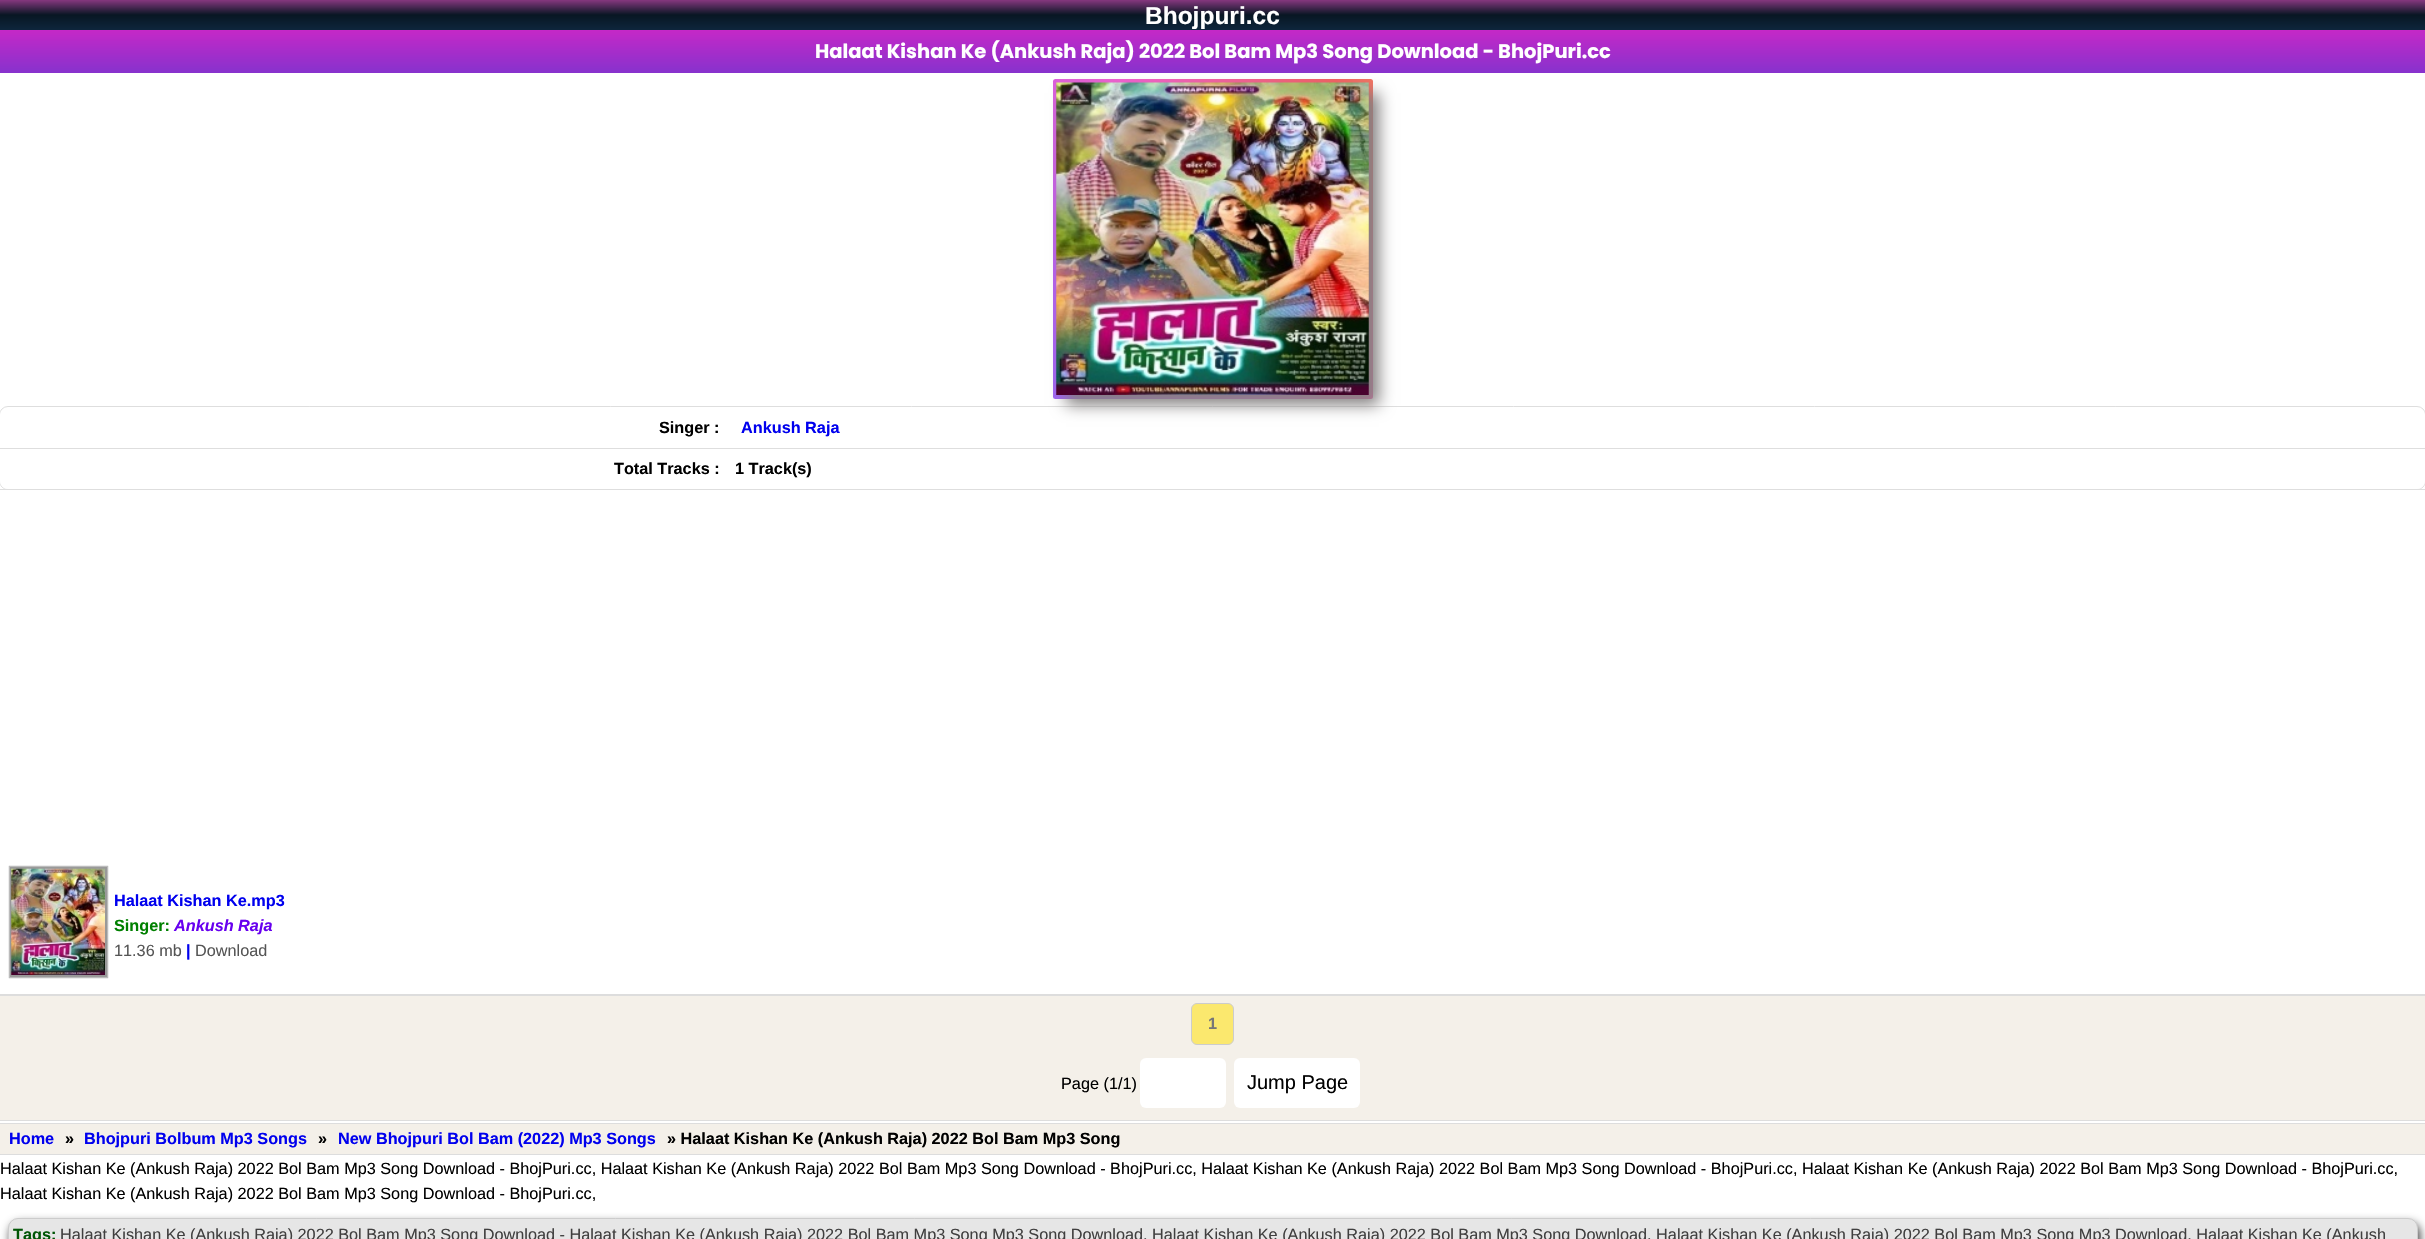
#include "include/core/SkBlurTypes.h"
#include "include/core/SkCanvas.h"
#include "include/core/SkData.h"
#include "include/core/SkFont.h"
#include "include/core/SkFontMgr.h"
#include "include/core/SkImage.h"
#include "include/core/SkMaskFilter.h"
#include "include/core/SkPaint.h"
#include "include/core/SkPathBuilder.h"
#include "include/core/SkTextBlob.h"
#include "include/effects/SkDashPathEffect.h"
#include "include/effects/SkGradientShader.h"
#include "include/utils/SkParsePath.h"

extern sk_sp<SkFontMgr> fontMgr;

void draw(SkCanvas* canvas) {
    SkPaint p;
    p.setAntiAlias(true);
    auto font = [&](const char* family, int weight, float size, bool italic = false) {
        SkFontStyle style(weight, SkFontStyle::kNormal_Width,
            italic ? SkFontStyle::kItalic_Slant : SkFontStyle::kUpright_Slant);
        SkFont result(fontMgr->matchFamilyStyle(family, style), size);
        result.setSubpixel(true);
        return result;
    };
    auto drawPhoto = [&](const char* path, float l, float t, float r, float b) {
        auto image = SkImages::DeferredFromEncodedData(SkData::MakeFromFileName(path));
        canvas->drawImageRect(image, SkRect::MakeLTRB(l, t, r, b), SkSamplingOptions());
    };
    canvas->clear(0xFFFFFFFF);
    {
        const SkColor colors[] = {0xFF0E253C, 0xFF081623, 0xFF85377E};
        const float stops[] = {0, 0.5f, 1};
        const SkPoint ends[] = {{1213, 30}, {1213, 0}};
        p.setShader(SkGradientShader::MakeLinear(ends, colors, stops, 3, SkTileMode::kClamp));
        p.setAlpha(255);
    }
    canvas->drawRect(SkRect::MakeLTRB(0, 0, 2425, 30), p);
    auto font1 = font("Liberation Sans", 700, 24.5f);
    p.setShader(nullptr);
    p.setColor(0xFFFFFFFF);
    canvas->drawString("Bhojpuri.cc", 1145, 24, font1, p);
    {
        const SkColor colors[] = {0xFFC528C7, 0xFF8732CD};
        const float stops[] = {0, 1};
        const SkPoint ends[] = {{1213, 30}, {1213, 73}};
        p.setShader(SkGradientShader::MakeLinear(ends, colors, stops, 2, SkTileMode::kClamp));
        p.setAlpha(255);
    }
    canvas->drawRect(SkRect::MakeLTRB(0, 30, 2425, 73), p);
    auto font2 = font("Poppins", 700, 19.5f);
    p.setShader(nullptr);
    p.setColor(0xFFFFFFFF);
    canvas->drawString("Halaat Kishan Ke (Ankush Raja) 2022 Bol Bam Mp3 Song Download - BhojPuri.cc", 815, 58, font2, p);
    {
        const SkColor colors[] = {0xFF5F86F2, 0xFFA65FF2, 0xFFF25FD0, 0xFFF25F61, 0xFFF2CB5F, 0xFFABF25F, 0xFF5FF281, 0xFF5FF2F0};
        const float stops[] = {0, 0.14f, 0.29f, 0.43f, 0.57f, 0.71f, 0.86f, 1};
        const SkPoint ends[] = {{965, 567}, {2100, -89}};
        p.setShader(SkGradientShader::MakeLinear(ends, colors, stops, 8, SkTileMode::kClamp));
        p.setAlpha(255);
    }
    canvas->drawRoundRect(SkRect::MakeLTRB(1053, 79, 1373, 399), 2.5f, 2.5f, p);
    p.setStyle(SkPaint::kStroke_Style);
    p.setStrokeWidth(1);
    p.setShader(nullptr);
    p.setColor(0xFFDEDEDE);
    canvas->drawRoundRect(SkRect::MakeLTRB(-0.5f, 406.5f, 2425.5f, 489.5f), 8.5f, 8.5f, p);
    p.setStyle(SkPaint::kFill_Style);
    p.setColor(0xFFFFFFFF);
    canvas->drawRoundRect(SkRect::MakeLTRB(0, 408, 2425, 489), 8, 8, p);
    p.setColor(0xFF848181);
    p.setMaskFilter(SkMaskFilter::MakeBlur(kNormal_SkBlurStyle, 7.5f));
    canvas->drawRect(SkRect::MakeLTRB(1066, 93, 1379, 405), p);
    p.setMaskFilter(nullptr);
    drawPhoto("media/1.png", 1056, 82, 1369, 395);
    p.setColor(0xFFDEDEDE);
    canvas->drawRect(SkRect::MakeLTRB(0, 448, 2425, 449), p);
    auto font3 = font("Liberation Sans", 700, 16.25f);
    p.setColor(0xFF000000);
    canvas->drawString("Singer :", 659, 433, font3, p);
    p.setColor(0xFF0000EE);
    canvas->drawString("Ankush Raja", 741, 433, font3, p);
    p.setColor(0xFFDEDEDE);
    canvas->drawRect(SkRect::MakeLTRB(0, 489, 2425, 490), p);
    p.setColor(0xFF000000);
    canvas->drawString("Total Tracks :", 614, 474, font3, p);
    canvas->drawString("1 Track(s)", 735, 474, font3, p);
    p.setColor(0xFFDDDDDD);
    canvas->drawRect(SkRect::MakeLTRB(0, 994, 2425, 996), p);
    p.setColor(0xFF999999);
    p.setMaskFilter(SkMaskFilter::MakeBlur(kNormal_SkBlurStyle, 0.5f));
    canvas->drawRect(SkRect::MakeLTRB(9, 866, 108, 978), p);
    p.setMaskFilter(nullptr);
    p.setStyle(SkPaint::kStroke_Style);
    p.setColor(0xFFBBBBBB);
    canvas->drawRect(SkRect::MakeLTRB(9.5f, 866.5f, 107.5f, 977.5f), p);
    drawPhoto("media/2.png", 11, 868, 105, 975);
    p.setStyle(SkPaint::kFill_Style);
    p.setColor(0xFF0000EE);
    canvas->drawString("Halaat Kishan Ke.mp3", 114, 906, font3, p);
    p.setColor(0xFF008000);
    canvas->drawString("Singer:", 114, 931, font3, p);
    auto font4 = font("Liberation Sans", 700, 16.25f, true);
    p.setColor(0xFF6700EF);
    canvas->drawString("Ankush Raja", 174, 931, font4, p);
    auto font5 = font("Liberation Sans", 400, 16.25f);
    p.setColor(0xFF555555);
    canvas->drawString("11.36 mb", 114, 956, font5, p);
    p.setColor(0xFF0000EE);
    canvas->drawString("|", 186, 956, font3, p);
    p.setColor(0xFF555555);
    canvas->drawString("Download", 195, 956, font5, p);
    p.setColor(0xFFF4F0E9);
    canvas->drawRect(SkRect::MakeLTRB(0, 996, 2425, 1120), p);
    p.setColor(0xFFDDDDDD);
    canvas->drawRect(SkRect::MakeLTRB(0, 1120, 2425, 1121), p);
    p.setColor(0xFFFBE86E);
    canvas->drawRoundRect(SkRect::MakeLTRB(1191.5f, 1003.5f, 1233.5f, 1044.5f), 5.5f, 5.5f, p);
    p.setStyle(SkPaint::kStroke_Style);
    p.setColor(0xFFCCCCCC);
    canvas->drawRoundRect(SkRect::MakeLTRB(1191.5f, 1003.5f, 1233.5f, 1044.5f), 5.5f, 5.5f, p);
    p.setStyle(SkPaint::kFill_Style);
    p.setColor(0xFF777777);
    canvas->drawString("1", 1208, 1029, font3, p);
    p.setColor(0xFF000000);
    canvas->drawString("Page (1/1)", 1061, 1089, font5, p);
    p.setColor(0xFFFFFFFF);
    canvas->drawRoundRect(SkRect::MakeLTRB(1140, 1058, 1226, 1108), 6, 6, p);
    canvas->drawRoundRect(SkRect::MakeLTRB(1234, 1058, 1360, 1108), 6, 6, p);
    auto font6 = font("Liberation Sans", 400, 20);
    p.setColor(0xFF000000);
    canvas->drawString("Jump Page", 1247, 1089, font6, p);
    {
        const struct { float l, t, r, b; SkColor color; } items[] = {
            {0, 1124, 2425, 1154, 0xFFF4F0E9},
            {0, 1123, 2425, 1124, 0xFFDDDDDD},
            {0, 1154, 2425, 1155, 0xFFDDDDDD},
        };
        for (auto [l, t, r, b, color] : items) {
            p.setColor(color);
            canvas->drawRect(SkRect::MakeLTRB(l, t, r, b), p);
        }
    }
    p.setColor(0xFF0000EE);
    canvas->drawString("Home", 9, 1144, font3, p);
    p.setColor(0xFF000000);
    canvas->drawString("»", 65, 1144, font3, p);
    p.setColor(0xFF0000EE);
    canvas->drawString("Bhojpuri Bolbum Mp3 Songs", 84, 1144, font3, p);
    p.setColor(0xFF000000);
    canvas->drawString("»", 318, 1144, font3, p);
    p.setColor(0xFF0000EE);
    canvas->drawString("New Bhojpuri Bol Bam (2022) Mp3 Songs", 338, 1144, font3, p);
    p.setColor(0xFF000000);
    canvas->drawString("» Halaat Kishan Ke (Ankush Raja) 2022 Bol Bam Mp3 Song", 667, 1144, font3, p);
    canvas->drawString("Halaat Kishan Ke (Ankush Raja) 2022 Bol Bam Mp3 Song Download - BhojPuri.cc, Halaat Kishan Ke (Ankush Raja) 2022 Bol Bam Mp3 Song Download - BhojPuri.cc, Halaat Kishan Ke (Ankush Raja) 2022 Bol Bam Mp3 Song Download - BhojPuri.cc, Halaat Kishan Ke (Ankush Raja) 2022 Bol Bam Mp3 Song Download - BhojPuri.cc,", 0, 1174, font5, p);
    canvas->drawString("Halaat Kishan Ke (Ankush Raja) 2022 Bol Bam Mp3 Song Download - BhojPuri.cc,", 0, 1199, font5, p);
    p.setColor(0xFF403F3F);
    p.setMaskFilter(SkMaskFilter::MakeBlur(kNormal_SkBlurStyle, 5));
    canvas->drawRoundRect(SkRect::MakeLTRB(10, 1223, 2420, 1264), 10, 10, p);
    p.setMaskFilter(nullptr);
    p.setColor(0xFFE6E6E6);
    canvas->drawRoundRect(SkRect::MakeLTRB(8.5f, 1218.5f, 2417.5f, 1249.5f), 9.5f, 9.5f, p);
    p.setStyle(SkPaint::kStroke_Style);
    p.setColor(0xFFCCCCCC);
    canvas->drawRoundRect(SkRect::MakeLTRB(8.5f, 1218.5f, 2417.5f, 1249.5f), 9.5f, 9.5f, p);
    p.setStyle(SkPaint::kFill_Style);
    p.setColor(0xFF005505);
    canvas->drawString("Tags:", 13, 1240, font3, p);
    p.setColor(0xFF403F3F);
    canvas->drawString("Halaat Kishan Ke (Ankush Raja) 2022 Bol Bam Mp3 Song Download - Halaat Kishan Ke (Ankush Raja) 2022 Bol Bam Mp3 Song Mp3 Song Download, Halaat Kishan Ke (Ankush Raja) 2022 Bol Bam Mp3 Song Download, Halaat Kishan Ke (Ankush Raja) 2022 Bol Bam Mp3 Song Mp3 Download, Halaat Kishan Ke (Ankush", 60, 1240, font5, p);
}
